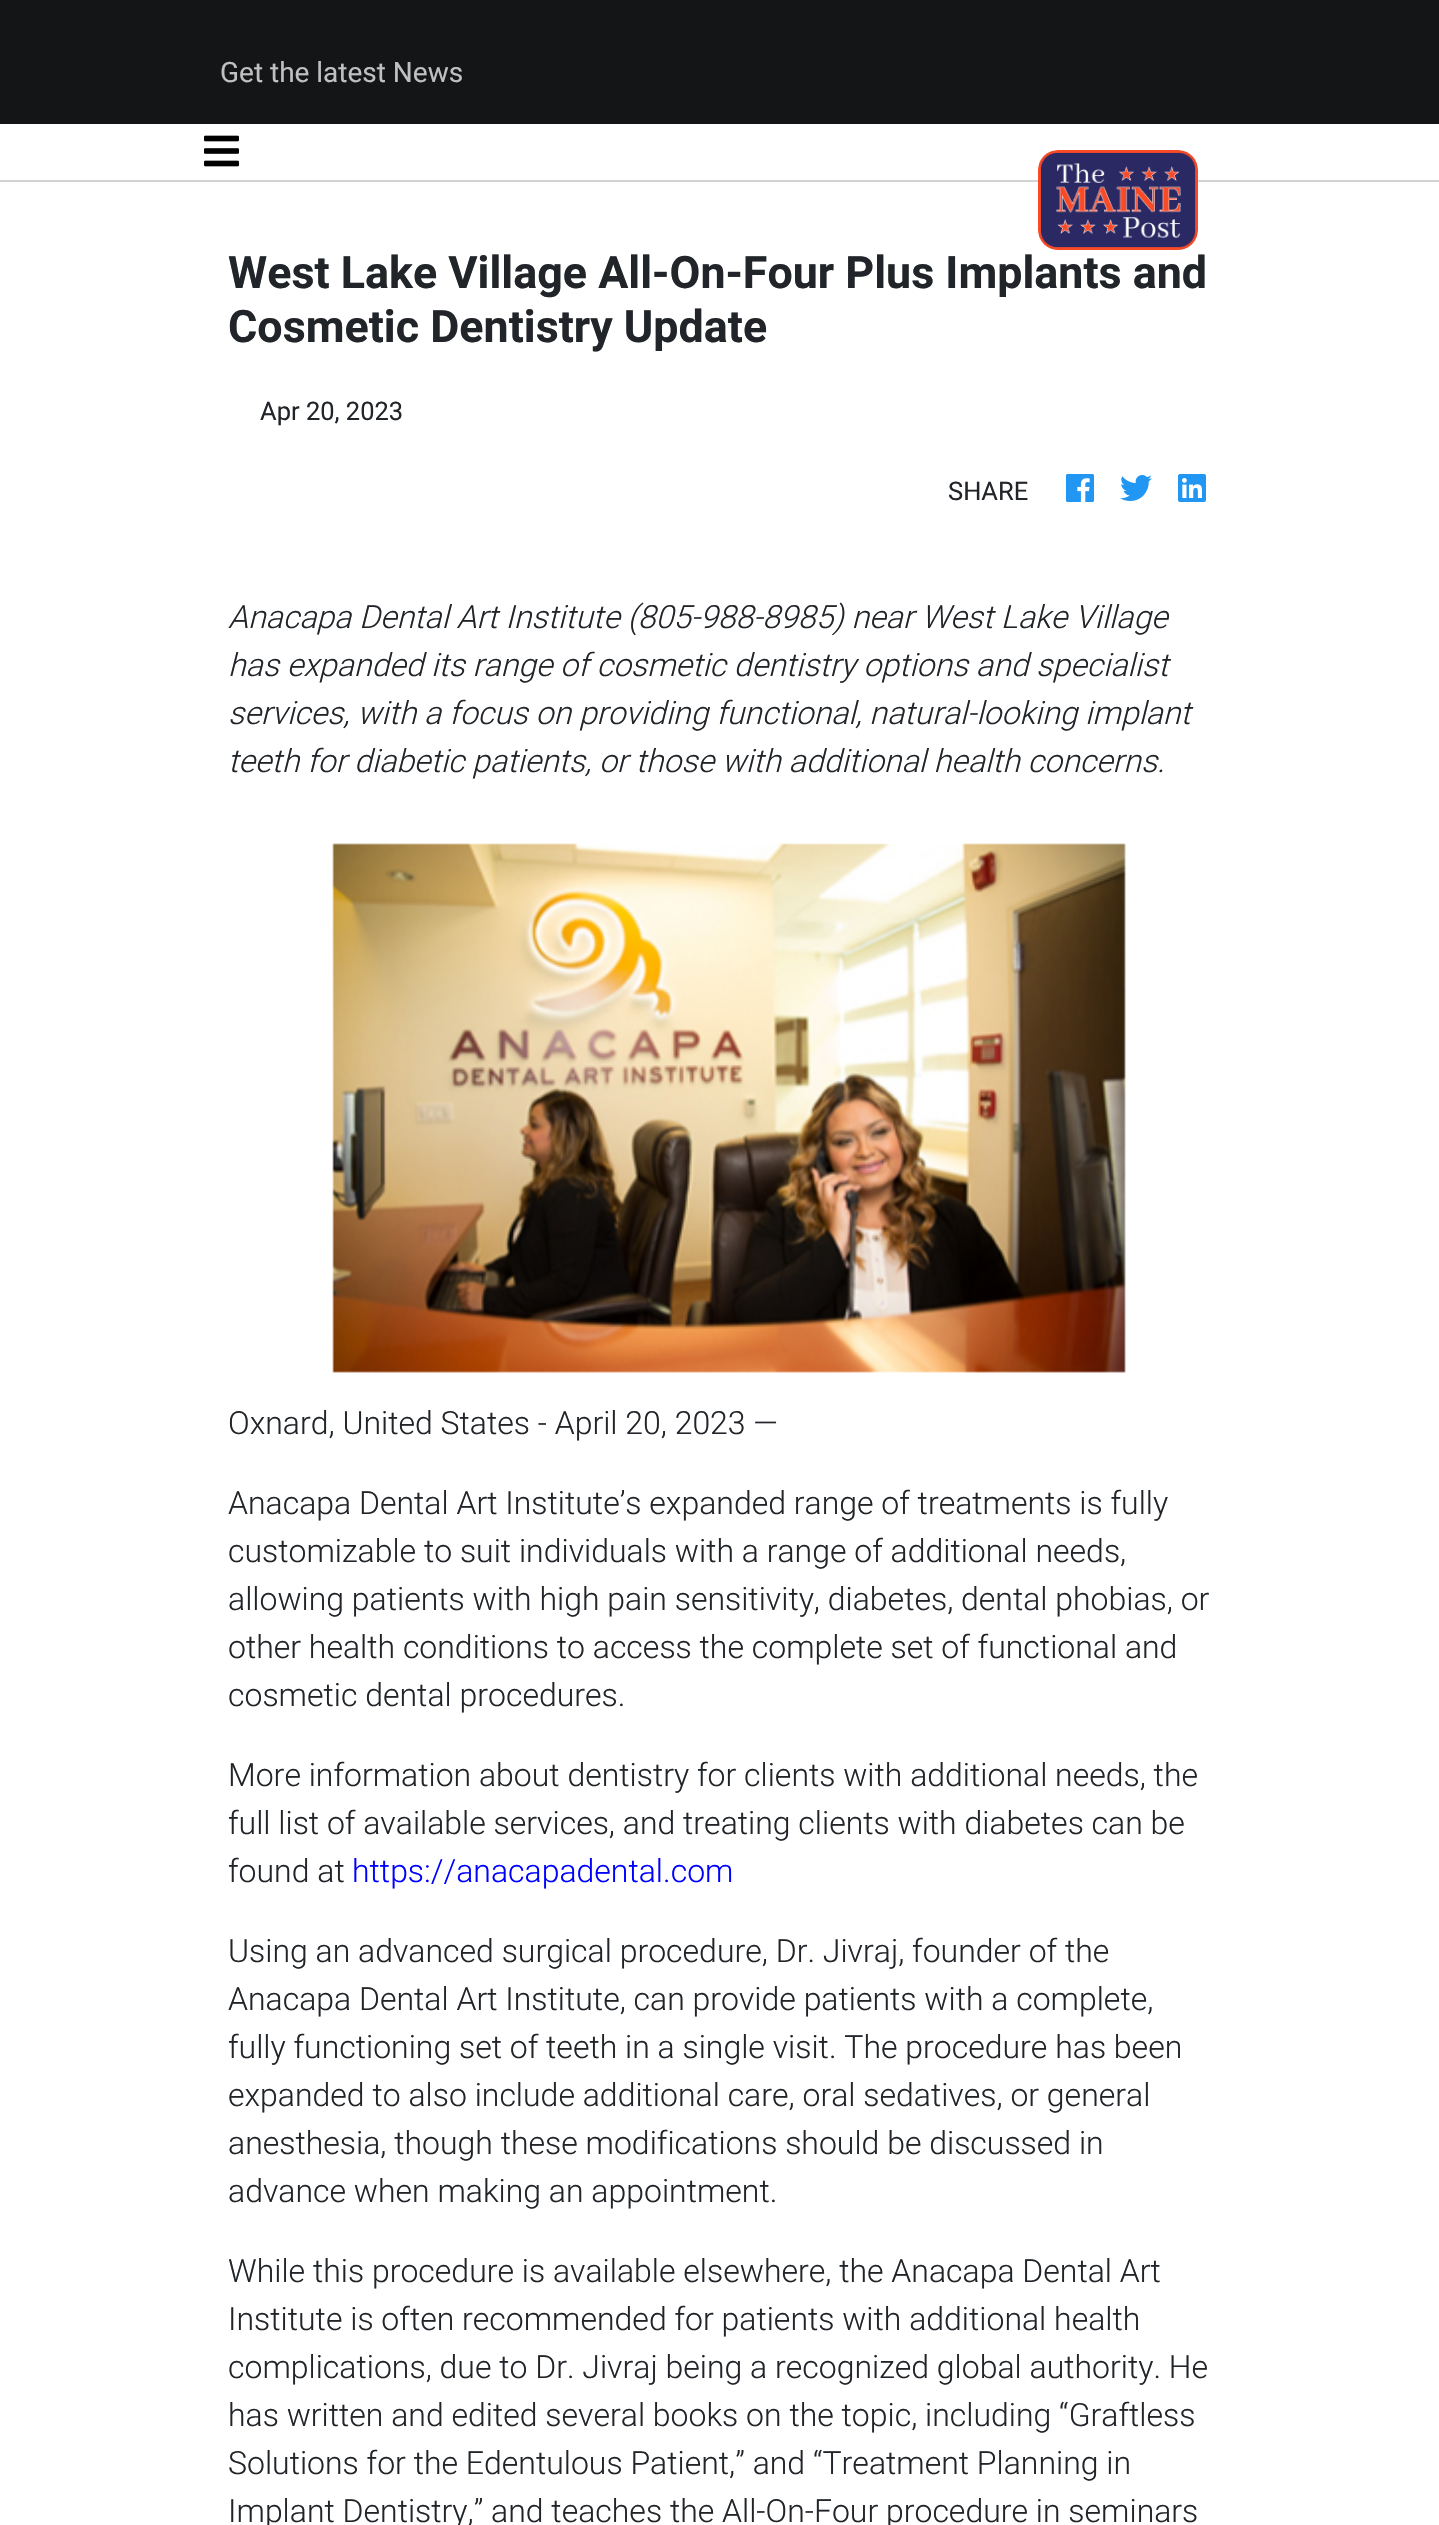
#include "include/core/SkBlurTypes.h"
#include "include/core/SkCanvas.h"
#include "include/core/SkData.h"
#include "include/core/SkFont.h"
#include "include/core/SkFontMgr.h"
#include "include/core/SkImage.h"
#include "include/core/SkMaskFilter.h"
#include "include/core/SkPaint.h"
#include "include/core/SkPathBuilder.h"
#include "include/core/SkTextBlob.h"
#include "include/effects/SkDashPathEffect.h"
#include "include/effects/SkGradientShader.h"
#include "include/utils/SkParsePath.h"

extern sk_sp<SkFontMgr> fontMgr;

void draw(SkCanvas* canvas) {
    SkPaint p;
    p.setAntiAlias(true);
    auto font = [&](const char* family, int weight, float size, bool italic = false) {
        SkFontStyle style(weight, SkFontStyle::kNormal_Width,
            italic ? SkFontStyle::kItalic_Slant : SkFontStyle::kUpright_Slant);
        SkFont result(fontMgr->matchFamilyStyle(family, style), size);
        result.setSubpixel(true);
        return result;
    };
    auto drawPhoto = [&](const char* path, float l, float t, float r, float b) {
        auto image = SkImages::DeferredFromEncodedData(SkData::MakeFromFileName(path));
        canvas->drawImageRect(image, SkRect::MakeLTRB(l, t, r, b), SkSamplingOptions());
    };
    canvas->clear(0xFFFFFFFF);
    p.setColor(0xFF141517);
    canvas->drawRect(SkRect::MakeLTRB(0, 0, 1439, 124), p);
    auto font1 = font("Roboto", 400, 28);
    p.setColor(0xFFC0C0C0);
    canvas->drawString("Get the latest News", 220, 82, font1, p);
    p.setColor(0xFFD2D2D2);
    canvas->drawRect(SkRect::MakeLTRB(0, 180, 1439, 182), p);
    drawPhoto("media/1.png", 1038, 150, 1198, 250);
    drawPhoto("media/2.png", 204, 135, 239, 167);
    auto font2 = font("Roboto", 700, 44.8f);
    p.setColor(0xFF212529);
    canvas->drawString("West Lake Village All-On-Four Plus Implants and", 228, 288, font2, p);
    canvas->drawString("Cosmetic Dentistry Update", 228, 342, font2, p);
    auto font3 = font("Roboto", 400, 25.5f);
    canvas->drawString("Apr 20, 2023", 260, 420, font3, p);
    canvas->drawString("SHARE", 948, 500, font3, p);
    drawPhoto("media/3.png", 1066, 474, 1094, 502);
    drawPhoto("media/4.png", 1120, 475, 1152, 501);
    drawPhoto("media/5.png", 1178, 474, 1206, 502);
    auto font4 = font("Roboto", 300, 32, true);
    {
        const struct { const char* s; float x, y; } items[] = {
            {"Anacapa Dental Art Institute (805-988-8985) near West Lake Village", 228, 628},
            {"has expanded its range of cosmetic dentistry options and specialist", 228, 676},
            {"services, with a focus on providing functional, natural-looking implant", 228, 724},
            {"teeth for diabetic patients, or those with additional health concerns.", 228, 772},
        };
        for (auto [s, x, y] : items) {
            canvas->drawString(s, x, y, font4, p);
        }
    }
    drawPhoto("media/6.png", 332, 843, 1126, 1373);
    auto font5 = font("Roboto", 300, 32);
    {
        const struct { const char* s; float x, y; } items[] = {
            {"Oxnard, United States - April 20, 2023 —", 228, 1434},
            {"Anacapa Dental Art Institute’s expanded range of treatments is fully", 228, 1514},
            {"customizable to suit individuals with a range of additional needs,", 228, 1562},
            {"allowing patients with high pain sensitivity, diabetes, dental phobias, or", 228, 1610},
            {"other health conditions to access the complete set of functional and", 228, 1658},
            {"cosmetic dental procedures.", 228, 1706},
            {"More information about dentistry for clients with additional needs, the", 228, 1786},
            {"full list of available services, and treating clients with diabetes can be", 228, 1834},
            {"found at", 228, 1882},
        };
        for (auto [s, x, y] : items) {
            canvas->drawString(s, x, y, font5, p);
        }
    }
    p.setColor(0xFF0000FF);
    canvas->drawString("https://anacapadental.com", 352, 1882, font5, p);
    p.setColor(0xFF212529);
    {
        const struct { const char* s; float x, y; } items[] = {
            {"Using an advanced surgical procedure, Dr. Jivraj, founder of the", 228, 1962},
            {"Anacapa Dental Art Institute, can provide patients with a complete,", 228, 2010},
            {"fully functioning set of teeth in a single visit. The procedure has been", 228, 2058},
            {"expanded to also include additional care, oral sedatives, or general", 228, 2106},
            {"anesthesia, though these modifications should be discussed in", 228, 2154},
            {"advance when making an appointment.", 228, 2202},
            {"While this procedure is available elsewhere, the Anacapa Dental Art", 228, 2282},
            {"Institute is often recommended for patients with additional health", 228, 2330},
            {"complications, due to Dr. Jivraj being a recognized global authority. He", 228, 2378},
            {"has written and edited several books on the topic, including “Graftless", 228, 2426},
            {"Solutions for the Edentulous Patient,” and “Treatment Planning in", 228, 2474},
            {"Implant Dentistry,” and teaches the All-On-Four procedure in seminars", 228, 2522},
        };
        for (auto [s, x, y] : items) {
            canvas->drawString(s, x, y, font5, p);
        }
    }
}
